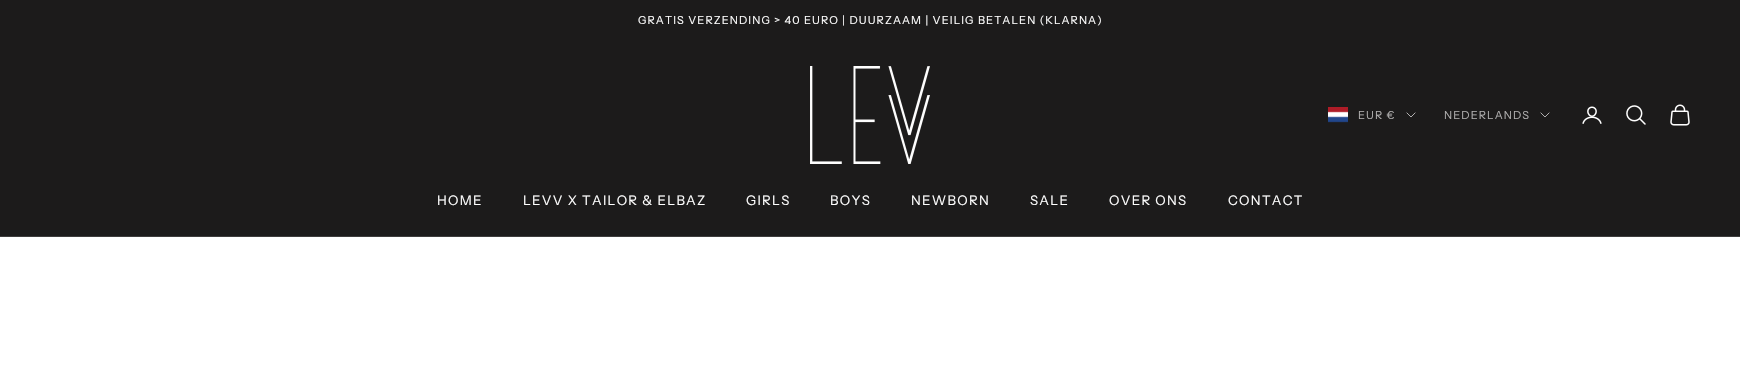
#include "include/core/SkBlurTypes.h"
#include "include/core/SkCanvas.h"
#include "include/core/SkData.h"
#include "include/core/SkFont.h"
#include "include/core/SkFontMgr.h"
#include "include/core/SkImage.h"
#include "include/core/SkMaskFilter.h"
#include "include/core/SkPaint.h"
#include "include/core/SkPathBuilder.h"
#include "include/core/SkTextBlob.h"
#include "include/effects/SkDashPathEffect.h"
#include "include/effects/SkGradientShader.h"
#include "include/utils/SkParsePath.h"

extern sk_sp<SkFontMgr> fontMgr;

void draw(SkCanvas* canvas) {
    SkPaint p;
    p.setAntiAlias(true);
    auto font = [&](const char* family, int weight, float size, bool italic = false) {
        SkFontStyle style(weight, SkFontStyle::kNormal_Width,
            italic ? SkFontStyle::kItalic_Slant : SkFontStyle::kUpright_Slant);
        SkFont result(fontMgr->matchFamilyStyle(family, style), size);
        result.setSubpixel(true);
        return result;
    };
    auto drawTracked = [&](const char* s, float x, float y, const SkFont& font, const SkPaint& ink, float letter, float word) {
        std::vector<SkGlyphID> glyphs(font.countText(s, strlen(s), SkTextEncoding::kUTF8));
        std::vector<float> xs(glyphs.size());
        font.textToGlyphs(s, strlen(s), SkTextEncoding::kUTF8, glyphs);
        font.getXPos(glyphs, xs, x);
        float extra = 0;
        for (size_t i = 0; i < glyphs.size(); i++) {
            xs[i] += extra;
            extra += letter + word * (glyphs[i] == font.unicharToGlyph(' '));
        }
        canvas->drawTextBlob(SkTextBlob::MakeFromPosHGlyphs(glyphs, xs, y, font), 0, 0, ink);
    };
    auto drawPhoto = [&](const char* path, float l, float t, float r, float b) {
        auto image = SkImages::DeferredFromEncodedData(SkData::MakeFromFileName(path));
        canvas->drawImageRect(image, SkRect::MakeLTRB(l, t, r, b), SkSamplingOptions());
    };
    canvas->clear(0xFFFFFFFF);
    p.setColor(0xFF1C1B1B);
    canvas->drawRect(SkRect::MakeLTRB(0, 0, 1740, 236), p);
    auto font1 = font("Instrument Sans", 400, 11);
    p.setColor(0xFFFFFFFF);
    drawTracked("GRATIS VERZENDING > 40 EURO | DUURZAAM | VEILIG BETALEN (KLARNA)", 638, 24, font1, p, 1.1f, 0);
    p.setColor(0xFF3E3D3D);
    canvas->drawRect(SkRect::MakeLTRB(0, 236, 1740, 237), p);
    drawPhoto("media/1.png", 810, 66, 930, 164);
    drawPhoto("media/2.png", 1328, 107, 1348, 123);
    p.setColor(0xFFB0AFAF);
    drawTracked("EUR €", 1358, 119, font1, p, 1.1f, 0);
    p.setStyle(SkPaint::kStroke_Style);
    p.setStrokeWidth(1);
    p.setStrokeCap(SkPaint::kSquare_Cap);
    canvas->drawPath(SkPathBuilder().moveTo(1407, 113).lineTo(1411, 117).lineTo(1415, 113).detach(), p);
    p.setStyle(SkPaint::kFill_Style);
    drawTracked("NEDERLANDS", 1444, 119, font1, p, 1.1f, 0);
    p.setStyle(SkPaint::kStroke_Style);
    canvas->drawPath(SkPathBuilder().moveTo(1541, 113).lineTo(1545, 117).lineTo(1549, 113).detach(), p);
    drawPhoto("media/3.png", 1582, 106, 1602, 124);
    drawPhoto("media/4.png", 1626, 105, 1646, 125);
    drawPhoto("media/5.png", 1670, 104, 1690, 126);
    auto font2 = font("Instrument Sans", 400, 13.25f);
    p.setStyle(SkPaint::kFill_Style);
    p.setColor(0xFFFFFFFF);
    {
        const struct { const char* s; float x, y; } items[] = {
            {"HOME", 437, 205},
            {"LEVV X TAILOR & ELBAZ", 523, 205},
            {"GIRLS", 746, 205},
            {"BOYS", 830, 205},
            {"NEWBORN", 911, 205},
            {"SALE", 1030, 205},
            {"OVER ONS", 1109, 205},
            {"CONTACT", 1228, 205},
        };
        for (auto [s, x, y] : items) {
            drawTracked(s, x, y, font2, p, 1.3f, 0);
        }
    }
}
